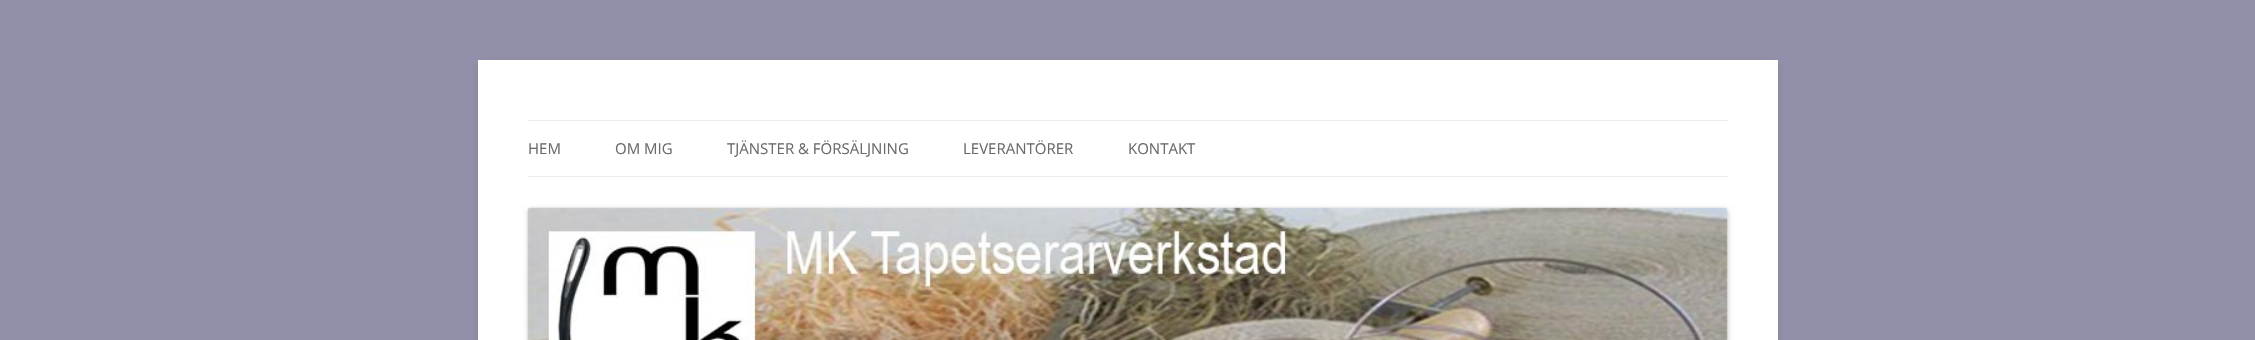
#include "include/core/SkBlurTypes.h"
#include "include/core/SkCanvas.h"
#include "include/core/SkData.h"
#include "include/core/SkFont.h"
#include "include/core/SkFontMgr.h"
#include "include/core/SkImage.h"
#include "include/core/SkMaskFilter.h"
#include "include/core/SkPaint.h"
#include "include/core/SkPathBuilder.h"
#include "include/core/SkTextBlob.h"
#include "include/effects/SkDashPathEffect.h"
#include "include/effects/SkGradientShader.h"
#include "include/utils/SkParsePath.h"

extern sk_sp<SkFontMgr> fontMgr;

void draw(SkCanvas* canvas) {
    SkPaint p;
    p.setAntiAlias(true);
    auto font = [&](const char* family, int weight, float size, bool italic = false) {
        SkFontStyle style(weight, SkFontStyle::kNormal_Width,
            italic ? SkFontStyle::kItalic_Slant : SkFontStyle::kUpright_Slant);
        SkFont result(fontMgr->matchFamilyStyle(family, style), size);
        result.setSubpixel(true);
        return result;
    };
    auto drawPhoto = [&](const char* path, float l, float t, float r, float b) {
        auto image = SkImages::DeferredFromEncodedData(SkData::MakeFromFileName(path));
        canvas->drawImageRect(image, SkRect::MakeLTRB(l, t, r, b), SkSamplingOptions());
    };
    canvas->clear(0xFF928FAA);
    p.setColor(0x4D646464);
    p.setMaskFilter(SkMaskFilter::MakeBlur(kNormal_SkBlurStyle, 4));
    canvas->drawRect(SkRect::MakeLTRB(478, 63, 1778, 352), p);
    p.setMaskFilter(nullptr);
    {
        const struct { float l, t, r, b; SkColor color; } items[] = {
            {478, 60, 1778, 340, 0xFFFFFFFF},
            {528, 120, 1728, 121, 0xFFEDEDED},
            {528, 176, 1728, 177, 0xFFEDEDED},
        };
        for (auto [l, t, r, b, color] : items) {
            p.setColor(color);
            canvas->drawRect(SkRect::MakeLTRB(l, t, r, b), p);
        }
    }
    auto font1 = font("Open Sans", 400, 15);
    p.setColor(0xFF6A6A6A);
    {
        const struct { const char* s; float x, y; } items[] = {
            {"HEM", 528, 154},
            {"OM MIG", 615, 154},
            {"TJÄNSTER & FÖRSÄLJNING", 727, 154},
            {"LEVERANTÖRER", 963, 154},
            {"KONTAKT", 1128, 154},
        };
        for (auto [s, x, y] : items) {
            canvas->drawString(s, x, y, font1, p);
        }
    }
    p.setColor(0x33000000);
    p.setMaskFilter(SkMaskFilter::MakeBlur(kNormal_SkBlurStyle, 2.5f));
    canvas->drawRoundRect(SkRect::MakeLTRB(528, 209, 1728, 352), 4, 4, p);
    p.setMaskFilter(nullptr);
    drawPhoto("media/1.png", 527, 207, 1728, 340);
}
